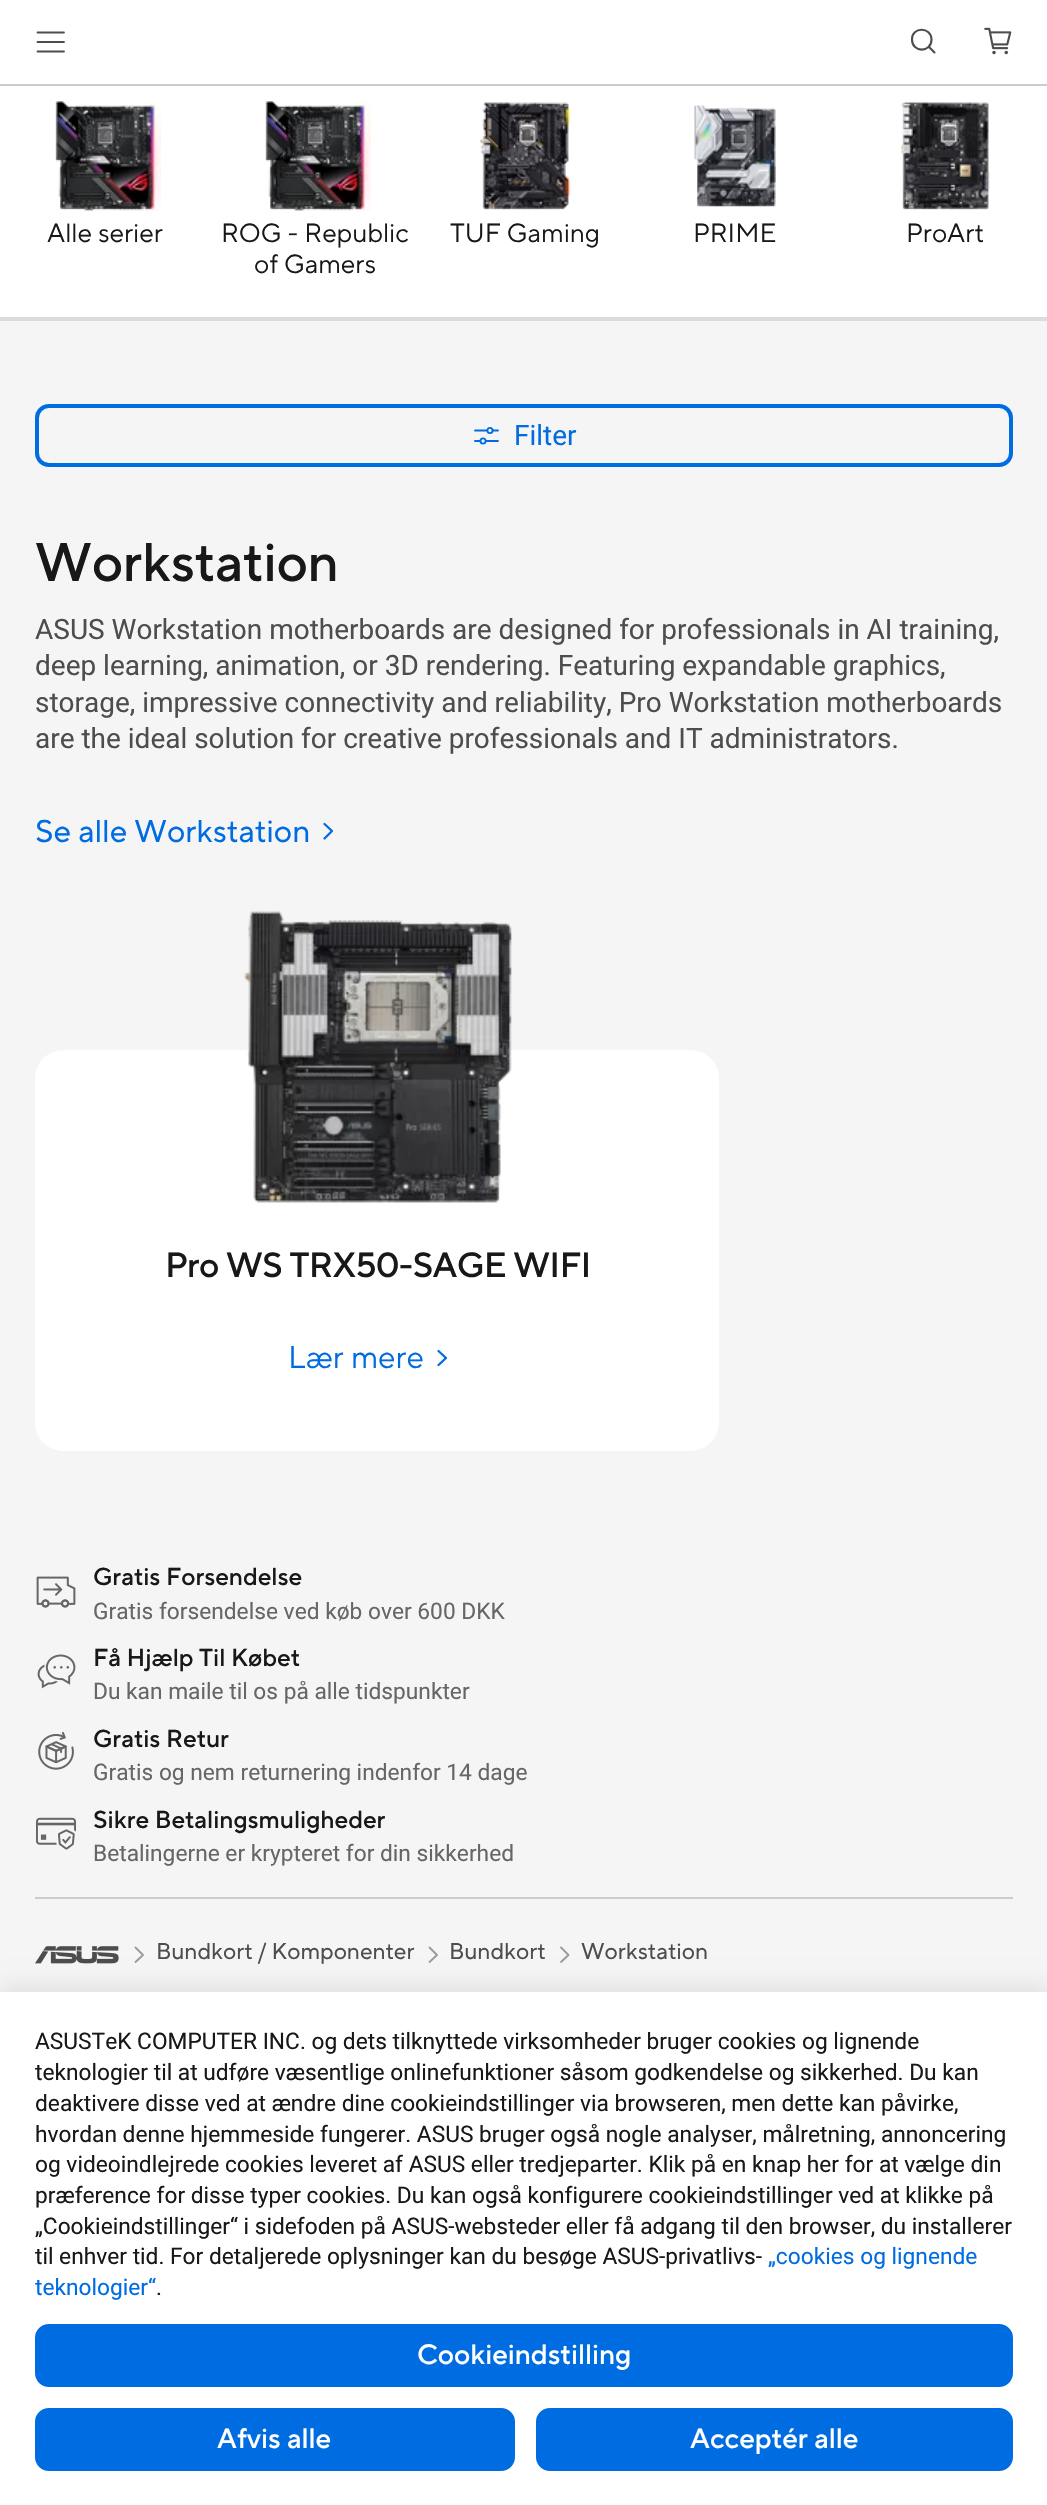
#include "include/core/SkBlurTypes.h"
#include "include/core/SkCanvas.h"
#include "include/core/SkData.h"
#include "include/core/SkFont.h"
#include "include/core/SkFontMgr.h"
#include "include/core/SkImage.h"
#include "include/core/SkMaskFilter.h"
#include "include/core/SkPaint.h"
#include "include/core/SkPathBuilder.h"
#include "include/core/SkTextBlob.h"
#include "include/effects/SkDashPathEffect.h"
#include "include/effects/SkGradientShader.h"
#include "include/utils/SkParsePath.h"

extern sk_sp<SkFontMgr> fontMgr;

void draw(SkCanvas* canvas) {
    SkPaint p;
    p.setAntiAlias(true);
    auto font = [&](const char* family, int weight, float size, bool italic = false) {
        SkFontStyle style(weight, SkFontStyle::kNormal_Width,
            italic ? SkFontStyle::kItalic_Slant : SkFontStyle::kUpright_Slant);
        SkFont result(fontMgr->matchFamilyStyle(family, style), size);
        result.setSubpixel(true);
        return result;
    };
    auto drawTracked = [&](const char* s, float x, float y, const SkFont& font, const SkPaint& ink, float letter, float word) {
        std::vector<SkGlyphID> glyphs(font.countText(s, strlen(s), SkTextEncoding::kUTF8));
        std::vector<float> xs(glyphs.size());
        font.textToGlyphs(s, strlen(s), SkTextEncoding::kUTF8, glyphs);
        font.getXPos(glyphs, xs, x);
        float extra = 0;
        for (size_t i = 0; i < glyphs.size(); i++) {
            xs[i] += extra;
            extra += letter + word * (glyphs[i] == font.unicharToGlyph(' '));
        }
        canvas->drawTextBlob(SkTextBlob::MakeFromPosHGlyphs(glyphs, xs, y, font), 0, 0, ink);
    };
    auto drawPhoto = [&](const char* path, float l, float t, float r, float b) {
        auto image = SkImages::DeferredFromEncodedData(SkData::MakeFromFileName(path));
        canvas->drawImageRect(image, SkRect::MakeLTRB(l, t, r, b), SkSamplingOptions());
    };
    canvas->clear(0xFFFFFFFF);
    p.setColor(0xFFCCCCCC);
    canvas->drawRect(SkRect::MakeLTRB(0, 84, 1047, 86), p);
    p.setStyle(SkPaint::kStroke_Style);
    p.setStrokeWidth(1.8f);
    p.setStrokeCap(SkPaint::kRound_Cap);
    p.setColor(0xFF4D4D4D);
    canvas->drawPath(SkPathBuilder().moveTo(37.5f, 42).lineTo(64, 42).moveTo(37.5f, 32.5f).lineTo(64, 32.5f).moveTo(37.5f, 51.5f).lineTo(64, 51.5f).detach(), p);
    p.setStrokeWidth(2.1f);
    canvas->drawPath(SkPathBuilder().moveTo(929, 47).lineTo(934.5f, 52.5f).moveTo(931.5f, 39.5f).cubicTo(931.5f, 53, 912, 53, 912, 39.5f).cubicTo(911.5f, 26.5f, 931.5f, 26.5f, 931.5f, 39.5f).close().detach(), p);
    drawPhoto("media/1.png", 984, 27, 1012, 55);
    drawPhoto("media/2.png", 55, 101, 161, 211);
    auto font1 = font("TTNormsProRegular", 400, 26.25f);
    p.setStyle(SkPaint::kFill_Style);
    p.setColor(0xFF181818);
    canvas->drawString("Alle serier", 47, 242, font1, p);
    drawPhoto("media/2.png", 265, 101, 371, 211);
    canvas->drawString("ROG - Republic", 221, 242, font1, p);
    canvas->drawString("of Gamers", 254, 273, font1, p);
    drawPhoto("media/3.png", 479, 102, 572, 210);
    canvas->drawString("TUF Gaming", 450, 242, font1, p);
    drawPhoto("media/4.png", 694, 105, 776, 208);
    canvas->drawString("PRIME", 693, 242, font1, p);
    drawPhoto("media/5.png", 900, 102, 990, 210);
    canvas->drawString("ProArt", 906, 242, font1, p);
    p.setColor(0xFFDCDCDC);
    canvas->drawRect(SkRect::MakeLTRB(0, 317, 1047, 321), p);
    p.setColor(0xFFF5F5F5);
    canvas->drawRect(SkRect::MakeLTRB(0, 321, 1047, 1899), p);
    p.setStyle(SkPaint::kStroke_Style);
    p.setStrokeWidth(4);
    p.setStrokeCap(SkPaint::kButt_Cap);
    p.setColor(0xFF006CE1);
    canvas->drawRoundRect(SkRect::MakeLTRB(37, 406, 1011, 465), 12, 12, p);
    p.setStrokeWidth(1.8f);
    p.setStrokeCap(SkPaint::kRound_Cap);
    canvas->drawPath(SkPathBuilder().moveTo(475, 430.5f).lineTo(486.5f, 430.5f).moveTo(492.5f, 430.5f).lineTo(498, 430.5f).moveTo(475, 441).lineTo(480.5f, 441).moveTo(486.5f, 441).lineTo(498, 441).detach(), p);
    p.setStrokeCap(SkPaint::kButt_Cap);
    canvas->drawCircle(490, 430.5f, 2.6f, p);
    canvas->drawCircle(483, 441, 2.6f, p);
    auto font2 = font("Roboto", 400, 28);
    p.setStyle(SkPaint::kFill_Style);
    canvas->drawString("Filter", 514, 445, font2, p);
    auto font3 = font("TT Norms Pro", 500, 54.25f);
    p.setColor(0xFF181818);
    drawTracked("Workstation", 35, 581, font3, p, -0.3f, 0);
    p.setColor(0xFF4D4D4D);
    {
        const struct { const char* s; float x, y; } items[] = {
            {"ASUS Workstation motherboards are designed for professionals in AI training,", 35, 639},
            {"deep learning, animation, or 3D rendering. Featuring expandable graphics,", 35, 675},
            {"storage, impressive connectivity and reliability, Pro Workstation motherboards", 35, 712},
            {"are the ideal solution for creative professionals and IT administrators.", 35, 748},
        };
        for (auto [s, x, y] : items) {
            canvas->drawString(s, x, y, font2, p);
        }
    }
    auto font4 = font("TT Norms Pro", 400, 31.5f);
    p.setColor(0xFF006CE1);
    canvas->drawString("Se alle Workstation", 35, 842, font4, p);
    p.setStyle(SkPaint::kStroke_Style);
    p.setStrokeWidth(2.3f);
    p.setStrokeCap(SkPaint::kRound_Cap);
    p.setStrokeJoin(SkPaint::kRound_Join);
    canvas->drawPath(SkPathBuilder().moveTo(324.5f, 824).lineTo(332, 831).lineTo(324.5f, 838.5f).detach(), p);
    p.setStyle(SkPaint::kFill_Style);
    p.setColor(0xFFFFFFFF);
    canvas->drawRoundRect(SkRect::MakeLTRB(35, 1050, 719, 1451), 28, 28, p);
    drawPhoto("media/6.png", 244, 911, 512, 1203);
    auto font5 = font("TT Norms Pro", 500, 35);
    p.setColor(0xFF181818);
    drawTracked("Pro WS TRX50-SAGE WIFI", 165, 1277, font5, p, -0.7f, 0);
    auto font6 = font("TTNormsProRegular", 400, 31.5f);
    p.setColor(0xFF006CE1);
    canvas->drawString("Lær mere", 288, 1368, font6, p);
    p.setStyle(SkPaint::kStroke_Style);
    canvas->drawPath(SkPathBuilder().moveTo(438.5f, 1351).lineTo(446, 1358).lineTo(438.5f, 1365).detach(), p);
    p.setStyle(SkPaint::kFill_Style);
    p.setColor(0xFFCCCCCC);
    canvas->drawRect(SkRect::MakeLTRB(35, 1897, 1013, 1899), p);
    drawPhoto("media/7.png", 36, 1576, 76, 1608);
    auto font7 = font("TT Norms Pro", 500, 24.5f);
    p.setColor(0xFF181818);
    canvas->drawString("Gratis Forsendelse", 93, 1585, font7, p);
    auto font8 = font("Roboto", 400, 22.75f);
    p.setColor(0xFF666666);
    canvas->drawString("Gratis forsendelse ved køb over 600 DKK", 93, 1619, font8, p);
    drawPhoto("media/8.png", 37, 1654, 76, 1689);
    p.setColor(0xFF181818);
    canvas->drawString("Få Hjælp Til Købet", 93, 1666, font7, p);
    p.setColor(0xFF666666);
    canvas->drawString("Du kan maile til os på alle tidspunkter", 93, 1699, font8, p);
    drawPhoto("media/9.png", 38, 1732, 74, 1770);
    p.setColor(0xFF181818);
    canvas->drawString("Gratis Retur", 93, 1747, font7, p);
    p.setColor(0xFF666666);
    canvas->drawString("Gratis og nem returnering indenfor 14 dage", 93, 1780, font8, p);
    drawPhoto("media/10.png", 36, 1817, 76, 1850);
    p.setColor(0xFF181818);
    canvas->drawString("Sikre Betalingsmuligheder", 93, 1828, font7, p);
    p.setColor(0xFF666666);
    canvas->drawString("Betalingerne er krypteret for din sikkerhed", 93, 1861, font8, p);
    p.setColor(0xFFF5F5F5);
    canvas->drawRect(SkRect::MakeLTRB(0, 1899, 1047, 1992), p);
    drawPhoto("media/11.png", 35, 1946, 119, 1964);
    p.setStyle(SkPaint::kStroke_Style);
    p.setStrokeWidth(1.8f);
    p.setColor(0xFF999999);
    canvas->drawPath(SkPathBuilder().moveTo(135.5f, 1947.5f).lineTo(143, 1955).lineTo(135.5f, 1962).detach(), p);
    auto font9 = font("TT Norms Pro", 400, 22.75f);
    p.setStyle(SkPaint::kFill_Style);
    p.setColor(0xFF4D4D4D);
    canvas->drawString("Bundkort / Komponenter", 156, 1959, font9, p);
    p.setStyle(SkPaint::kStroke_Style);
    p.setColor(0xFF999999);
    canvas->drawPath(SkPathBuilder().moveTo(429.5f, 1947.5f).lineTo(437, 1955).lineTo(429.5f, 1962).detach(), p);
    p.setStyle(SkPaint::kFill_Style);
    p.setColor(0xFF4D4D4D);
    canvas->drawString("Bundkort", 449, 1959, font9, p);
    p.setStyle(SkPaint::kStroke_Style);
    p.setColor(0xFF999999);
    canvas->drawPath(SkPathBuilder().moveTo(561, 1947.5f).lineTo(568.5f, 1955).lineTo(561, 1962).detach(), p);
    p.setStyle(SkPaint::kFill_Style);
    p.setColor(0xFF4D4D4D);
    canvas->drawString("Workstation", 581, 1959, font9, p);
    p.setColor(0x1A000000);
    p.setMaskFilter(SkMaskFilter::MakeBlur(kNormal_SkBlurStyle, 10.5f));
    canvas->drawRect(SkRect::MakeLTRB(2, 1988, 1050, 2503), p);
    p.setMaskFilter(nullptr);
    p.setColor(0xFFFFFFFF);
    canvas->drawRect(SkRect::MakeLTRB(0, 1992, 1047, 2505), p);
    p.setColor(0xFF181818);
    {
        const struct { const char* s; float x, y; } items[] = {
            {"ASUSTeK COMPUTER INC. og dets tilknyttede virksomheder bruger cookies og lignende", 35, 2049},
            {"teknologier til at udføre væsentlige onlinefunktioner såsom godkendelse og sikkerhed. Du kan", 35, 2080},
            {"deaktivere disse ved at ændre dine cookieindstillinger via browseren, men dette kan påvirke,", 35, 2111},
            {"hvordan denne hjemmeside fungerer. ASUS bruger også nogle analyser, målretning, annoncering", 35, 2142},
            {"og videoindlejrede cookies leveret af ASUS eller tredjeparter. Klik på en knap her for at vælge din", 35, 2172},
            {"præference for disse typer cookies. Du kan også konfigurere cookieindstillinger ved at klikke på", 35, 2203},
            {"„Cookieindstillinger“ i sidefoden på ASUS-websteder eller få adgang til den browser, du installerer", 35, 2234},
            {"til enhver tid. For detaljerede oplysninger kan du besøge ASUS-privatlivs-", 35, 2264},
        };
        for (auto [s, x, y] : items) {
            canvas->drawString(s, x, y, font8, p);
        }
    }
    p.setColor(0xFF006CE1);
    canvas->drawString("„cookies og lignende", 768, 2264, font8, p);
    canvas->drawString("teknologier“", 35, 2295, font8, p);
    p.setColor(0xFF181818);
    canvas->drawString(".", 156, 2295, font8, p);
    p.setColor(0xFF006CE1);
    canvas->drawRoundRect(SkRect::MakeLTRB(37, 2326, 1011, 2385), 12, 12, p);
    p.setStyle(SkPaint::kStroke_Style);
    p.setStrokeWidth(4);
    p.setStrokeCap(SkPaint::kButt_Cap);
    p.setStrokeJoin(SkPaint::kMiter_Join);
    canvas->drawRoundRect(SkRect::MakeLTRB(37, 2326, 1011, 2385), 12, 12, p);
    auto font10 = font("TT Norms Pro", 500, 28);
    p.setStyle(SkPaint::kFill_Style);
    p.setColor(0xFFFFFFFF);
    canvas->drawString("Cookieindstilling", 417, 2364, font10, p);
    p.setColor(0xFF006CE1);
    canvas->drawRoundRect(SkRect::MakeLTRB(37, 2410, 513, 2469), 12, 12, p);
    p.setStyle(SkPaint::kStroke_Style);
    canvas->drawRoundRect(SkRect::MakeLTRB(37, 2410, 513, 2469), 12, 12, p);
    p.setStyle(SkPaint::kFill_Style);
    p.setColor(0xFFFFFFFF);
    canvas->drawString("Afvis alle", 217, 2448, font10, p);
    p.setColor(0xFF006CE1);
    canvas->drawRoundRect(SkRect::MakeLTRB(538, 2410, 1011, 2469), 12, 12, p);
    p.setStyle(SkPaint::kStroke_Style);
    canvas->drawRoundRect(SkRect::MakeLTRB(538, 2410, 1011, 2469), 12, 12, p);
    p.setStyle(SkPaint::kFill_Style);
    p.setColor(0xFFFFFFFF);
    canvas->drawString("Acceptér alle", 690, 2448, font10, p);
}
